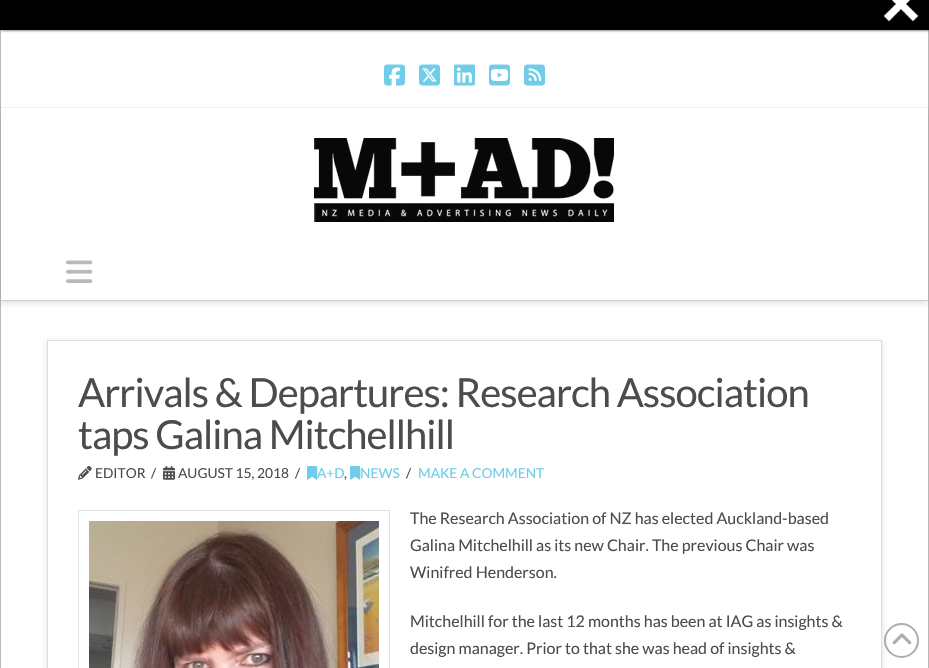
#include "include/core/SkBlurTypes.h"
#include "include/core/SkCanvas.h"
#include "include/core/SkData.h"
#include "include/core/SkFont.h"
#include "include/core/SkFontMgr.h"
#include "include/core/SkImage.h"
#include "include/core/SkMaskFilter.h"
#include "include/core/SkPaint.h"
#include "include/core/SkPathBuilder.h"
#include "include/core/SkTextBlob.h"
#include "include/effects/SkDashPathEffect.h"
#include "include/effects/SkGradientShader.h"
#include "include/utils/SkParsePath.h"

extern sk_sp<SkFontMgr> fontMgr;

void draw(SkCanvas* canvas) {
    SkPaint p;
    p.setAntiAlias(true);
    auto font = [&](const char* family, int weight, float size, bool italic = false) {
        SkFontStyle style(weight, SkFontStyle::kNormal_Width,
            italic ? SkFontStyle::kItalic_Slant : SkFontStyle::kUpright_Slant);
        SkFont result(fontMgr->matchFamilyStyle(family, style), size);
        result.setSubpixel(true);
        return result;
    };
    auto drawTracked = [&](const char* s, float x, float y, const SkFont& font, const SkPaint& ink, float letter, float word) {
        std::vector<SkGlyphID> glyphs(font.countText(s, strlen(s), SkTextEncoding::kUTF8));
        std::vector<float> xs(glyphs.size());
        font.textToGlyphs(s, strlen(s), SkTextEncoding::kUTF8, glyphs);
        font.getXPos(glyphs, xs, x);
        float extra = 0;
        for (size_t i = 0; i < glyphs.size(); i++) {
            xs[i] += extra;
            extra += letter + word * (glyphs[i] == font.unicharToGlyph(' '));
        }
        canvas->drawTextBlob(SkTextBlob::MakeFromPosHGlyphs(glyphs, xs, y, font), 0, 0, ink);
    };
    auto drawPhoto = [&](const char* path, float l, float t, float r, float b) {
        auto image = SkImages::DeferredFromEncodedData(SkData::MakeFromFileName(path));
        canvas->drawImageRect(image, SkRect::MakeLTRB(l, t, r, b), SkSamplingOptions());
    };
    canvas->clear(0xFFFFFFFF);
    p.setColor(0xFFB9B9B9);
    canvas->drawRect(SkRect::MakeLTRB(928, 30, 929, 668), p);
    canvas->drawRect(SkRect::MakeLTRB(0, 30, 1, 668), p);
    p.setColor(0x99424242);
    p.setMaskFilter(SkMaskFilter::MakeBlur(kNormal_SkBlurStyle, 1));
    canvas->drawRect(SkRect::MakeLTRB(1, 1, 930, 31), p);
    p.setMaskFilter(nullptr);
    p.setColor(0xFF000000);
    canvas->drawRect(SkRect::MakeLTRB(0, 0, 929, 30), p);
    drawPhoto("media/1.png", 883, 0, 919, 22);
    canvas->save();
    canvas->clipPath(SkPathBuilder(SkPathFillType::kEvenOdd).moveTo(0, 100).lineTo(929, 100).lineTo(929, 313).lineTo(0, 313).close().moveTo(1, 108).lineTo(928, 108).lineTo(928, 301).lineTo(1, 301).close().detach(), true);
    p.setColor(0x21000000);
    p.setMaskFilter(SkMaskFilter::MakeBlur(kNormal_SkBlurStyle, 3));
    canvas->drawRect(SkRect::MakeLTRB(1, 110, 928, 303), p);
    p.setMaskFilter(nullptr);
    canvas->restore();
    p.setColor(0xFFFFFFFF);
    canvas->drawRect(SkRect::MakeLTRB(2, 106, 927, 107), p);
    p.setColor(0xFFF2F2F2);
    canvas->drawRect(SkRect::MakeLTRB(1, 107, 928, 108), p);
    drawPhoto("media/2.png", 384, 64, 405, 86);
    drawPhoto("media/3.png", 419, 64, 440, 86);
    drawPhoto("media/4.png", 454, 64, 475, 86);
    drawPhoto("media/5.png", 489, 64, 510, 86);
    drawPhoto("media/6.png", 524, 64, 545, 86);
    p.setColor(0xFFCECECE);
    canvas->drawRect(SkRect::MakeLTRB(1, 300, 928, 301), p);
    drawPhoto("media/7.png", 314, 138, 614, 222);
    drawPhoto("media/8.png", 66, 260, 93, 283);
    canvas->save();
    canvas->clipPath(SkPathBuilder(SkPathFillType::kEvenOdd).moveTo(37, 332).lineTo(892, 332).lineTo(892, 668).lineTo(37, 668).close().moveTo(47, 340).lineTo(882, 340).lineTo(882, 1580).lineTo(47, 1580).close().detach(), true);
    p.setColor(0x21000000);
    p.setMaskFilter(SkMaskFilter::MakeBlur(kNormal_SkBlurStyle, 3));
    canvas->drawRect(SkRect::MakeLTRB(47, 342, 882, 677), p);
    p.setMaskFilter(nullptr);
    canvas->restore();
    p.setStyle(SkPaint::kStroke_Style);
    p.setStrokeWidth(1);
    p.setColor(0xFFDDDDDD);
    canvas->drawRect(SkRect::MakeLTRB(47.5f, 340.5f, 881.5f, 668.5f), p);
    auto font1 = font("Lato", 400, 40);
    p.setStyle(SkPaint::kFill_Style);
    p.setColor(0xFF4C4C4C);
    drawTracked("Arrivals & Departures: Research Association", 78, 407, font1, p, -1, 0);
    drawTracked("taps Galina Mitchellhill", 78, 449, font1, p, -1, 0);
    drawPhoto("media/9.png", 78, 466, 92, 480);
    auto font2 = font("Lato", 400, 13.75f);
    canvas->drawString("EDITOR", 95, 478, font2, p);
    canvas->drawString("/", 151, 478, font2, p);
    drawPhoto("media/10.png", 163, 466, 175, 480);
    canvas->drawString("AUGUST 15, 2018", 178, 478, font2, p);
    canvas->drawString("/", 295, 478, font2, p);
    drawPhoto("media/11.png", 307, 466, 318, 480);
    p.setColor(0xFF71CCE8);
    canvas->drawString("A+D", 317, 478, font2, p);
    p.setColor(0xFF4C4C4C);
    canvas->drawString(",", 344, 478, font2, p);
    drawPhoto("media/11.png", 350, 466, 361, 480);
    p.setColor(0xFF71CCE8);
    canvas->drawString("NEWS", 360, 478, font2, p);
    p.setColor(0xFF4C4C4C);
    canvas->drawString("/", 406, 478, font2, p);
    p.setColor(0xFF71CCE8);
    canvas->drawString("MAKE A COMMENT", 418, 478, font2, p);
    p.setStyle(SkPaint::kStroke_Style);
    p.setColor(0xFFE0E0E0);
    canvas->drawRect(SkRect::MakeLTRB(78.5f, 510.5f, 389.5f, 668.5f), p);
    drawPhoto("media/12.png", 89, 521, 379, 668);
    auto font3 = font("Lato", 400, 16);
    p.setStyle(SkPaint::kFill_Style);
    p.setColor(0xFF4C4C4C);
    {
        const struct { const char* s; float x, y; } items[] = {
            {"The Research Association of NZ has elected Auckland-based", 410, 524},
            {"Galina Mitchelhill as its new Chair. The previous Chair was", 410, 551},
            {"Winifred Henderson.", 410, 578},
            {"Mitchelhill for the last 12 months has been at IAG as insights &", 410, 627},
            {"design manager. Prior to that she was head of insights &", 410, 654},
        };
        for (auto [s, x, y] : items) {
            canvas->drawString(s, x, y, font3, p);
        }
    }
    p.setStyle(SkPaint::kStroke_Style);
    p.setStrokeWidth(2);
    p.setColor(0x61272727);
    canvas->drawCircle(901.5f, 640.5f, 16.5f, p);
    drawPhoto("media/13.png", 892, 633, 912, 645);
}
